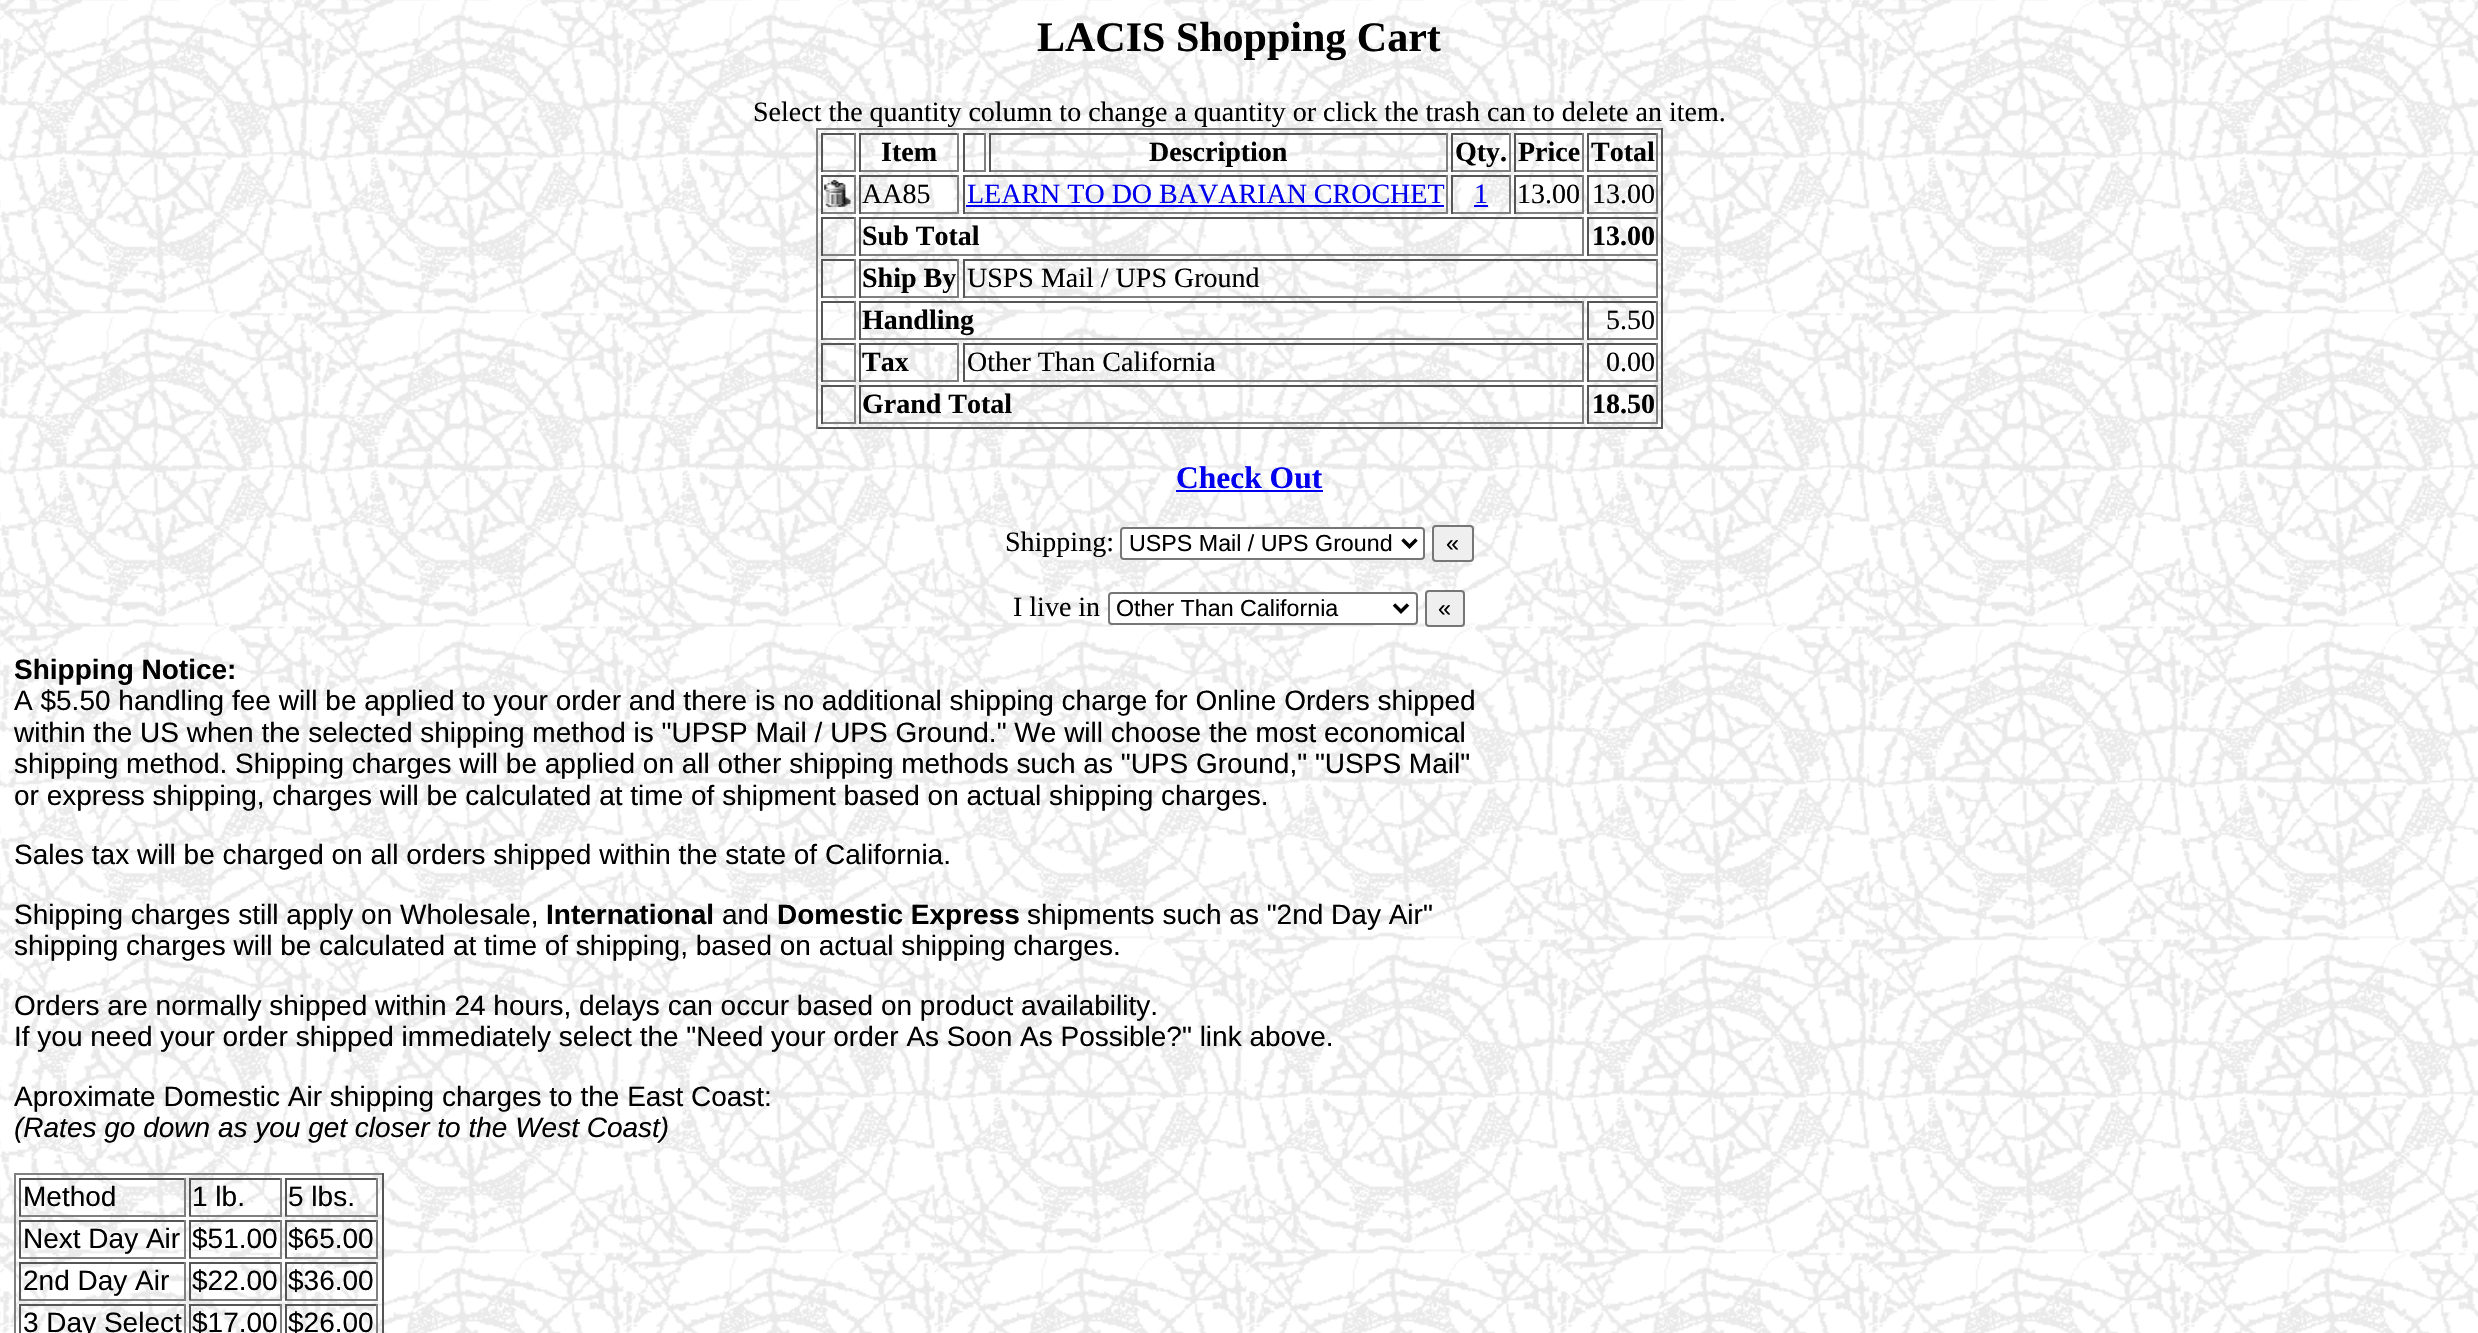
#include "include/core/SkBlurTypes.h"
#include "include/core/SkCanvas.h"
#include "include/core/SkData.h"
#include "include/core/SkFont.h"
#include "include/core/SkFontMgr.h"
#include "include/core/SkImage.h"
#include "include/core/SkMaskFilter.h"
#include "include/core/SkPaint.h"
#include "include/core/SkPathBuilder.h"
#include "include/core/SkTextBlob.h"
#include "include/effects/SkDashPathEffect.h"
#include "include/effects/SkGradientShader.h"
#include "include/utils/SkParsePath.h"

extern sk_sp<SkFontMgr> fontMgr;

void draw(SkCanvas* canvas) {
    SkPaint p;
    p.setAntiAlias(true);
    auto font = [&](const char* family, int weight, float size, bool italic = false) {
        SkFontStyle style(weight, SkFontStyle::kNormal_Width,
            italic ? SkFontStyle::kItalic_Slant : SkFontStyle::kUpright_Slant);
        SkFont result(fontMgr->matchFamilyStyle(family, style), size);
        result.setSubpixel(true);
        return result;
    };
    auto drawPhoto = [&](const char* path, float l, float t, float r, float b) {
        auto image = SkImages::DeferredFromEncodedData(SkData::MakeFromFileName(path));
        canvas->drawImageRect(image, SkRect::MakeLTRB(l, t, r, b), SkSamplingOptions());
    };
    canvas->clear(0xFFFFFFFF);
    drawPhoto("media/1.png", 0, 0, 2478, 1333);
    auto font1 = font("Liberation Serif", 700, 42);
    p.setColor(0xFF000000);
    canvas->drawString("LACIS Shopping Cart", 1037, 51, font1, p);
    auto font2 = font("Liberation Serif", 400, 28);
    canvas->drawString("Select the quantity column to change a quantity or click the trash can to delete an item.", 753, 121, font2, p);
    {
        const struct { float l, t, r, b; SkColor color; } items[] = {
            {816, 128, 1663, 130, 0xFF808080},
            {1661, 128, 1663, 429, 0xFF555555},
            {816, 427, 1663, 429, 0xFF555555},
            {816, 128, 818, 429, 0xFF808080},
            {821, 133, 856, 135, 0xFF555555},
            {854, 133, 856, 172, 0xFF808080},
            {821, 170, 856, 172, 0xFF808080},
            {821, 133, 823, 172, 0xFF555555},
            {859, 133, 959, 135, 0xFF555555},
            {957, 133, 959, 172, 0xFF808080},
            {859, 170, 959, 172, 0xFF808080},
            {859, 133, 861, 172, 0xFF555555},
        };
        for (auto [l, t, r, b, color] : items) {
            p.setColor(color);
            canvas->drawRect(SkRect::MakeLTRB(l, t, r, b), p);
        }
    }
    auto font3 = font("Liberation Serif", 700, 28);
    p.setColor(0xFF000000);
    canvas->drawString("Item", 881, 161, font3, p);
    {
        const struct { float l, t, r, b; SkColor color; } items[] = {
            {963, 133, 985, 135, 0xFF555555},
            {984, 133, 986, 172, 0xFF808080},
            {963, 170, 985, 172, 0xFF808080},
            {963, 133, 965, 172, 0xFF555555},
            {989, 133, 1447, 135, 0xFF555555},
            {1446, 133, 1448, 172, 0xFF808080},
            {989, 170, 1447, 172, 0xFF808080},
            {989, 133, 991, 172, 0xFF555555},
        };
        for (auto [l, t, r, b, color] : items) {
            p.setColor(color);
            canvas->drawRect(SkRect::MakeLTRB(l, t, r, b), p);
        }
    }
    p.setColor(0xFF000000);
    canvas->drawString("Description", 1149, 161, font3, p);
    {
        const struct { float l, t, r, b; SkColor color; } items[] = {
            {1451, 133, 1510, 135, 0xFF555555},
            {1509, 133, 1511, 172, 0xFF808080},
            {1451, 170, 1510, 172, 0xFF808080},
            {1451, 133, 1453, 172, 0xFF555555},
        };
        for (auto [l, t, r, b, color] : items) {
            p.setColor(color);
            canvas->drawRect(SkRect::MakeLTRB(l, t, r, b), p);
        }
    }
    p.setColor(0xFF000000);
    canvas->drawString("Qty.", 1455, 161, font3, p);
    {
        const struct { float l, t, r, b; SkColor color; } items[] = {
            {1514, 133, 1584, 135, 0xFF555555},
            {1582, 133, 1584, 172, 0xFF808080},
            {1514, 170, 1584, 172, 0xFF808080},
            {1514, 133, 1516, 172, 0xFF555555},
        };
        for (auto [l, t, r, b, color] : items) {
            p.setColor(color);
            canvas->drawRect(SkRect::MakeLTRB(l, t, r, b), p);
        }
    }
    p.setColor(0xFF000000);
    canvas->drawString("Price", 1518, 161, font3, p);
    {
        const struct { float l, t, r, b; SkColor color; } items[] = {
            {1587, 133, 1657, 135, 0xFF555555},
            {1656, 133, 1658, 172, 0xFF808080},
            {1587, 170, 1657, 172, 0xFF808080},
            {1587, 133, 1589, 172, 0xFF555555},
        };
        for (auto [l, t, r, b, color] : items) {
            p.setColor(color);
            canvas->drawRect(SkRect::MakeLTRB(l, t, r, b), p);
        }
    }
    p.setColor(0xFF000000);
    canvas->drawString("Total", 1591, 161, font3, p);
    {
        const struct { float l, t, r, b; SkColor color; } items[] = {
            {821, 175, 856, 177, 0xFF555555},
            {854, 175, 856, 214, 0xFF808080},
            {821, 212, 856, 214, 0xFF808080},
            {821, 175, 823, 214, 0xFF555555},
        };
        for (auto [l, t, r, b, color] : items) {
            p.setColor(color);
            canvas->drawRect(SkRect::MakeLTRB(l, t, r, b), p);
        }
    }
    drawPhoto("media/2.png", 824, 180, 851, 208);
    {
        const struct { float l, t, r, b; SkColor color; } items[] = {
            {859, 175, 959, 177, 0xFF555555},
            {957, 175, 959, 214, 0xFF808080},
            {859, 212, 959, 214, 0xFF808080},
            {859, 175, 861, 214, 0xFF555555},
        };
        for (auto [l, t, r, b, color] : items) {
            p.setColor(color);
            canvas->drawRect(SkRect::MakeLTRB(l, t, r, b), p);
        }
    }
    p.setColor(0xFF000000);
    canvas->drawString("AA85", 862, 203, font2, p);
    {
        const struct { float l, t, r, b; SkColor color; } items[] = {
            {963, 175, 1447, 177, 0xFF555555},
            {1446, 175, 1448, 214, 0xFF808080},
            {963, 212, 1447, 214, 0xFF808080},
            {963, 175, 965, 214, 0xFF555555},
        };
        for (auto [l, t, r, b, color] : items) {
            p.setColor(color);
            canvas->drawRect(SkRect::MakeLTRB(l, t, r, b), p);
        }
    }
    p.setColor(0xFF0000EE);
    canvas->drawString("LEARN TO DO BAVARIAN CROCHET", 967, 203, font2, p);
    {
        const struct { float l, t, r, b; SkColor color; } items[] = {
            {966, 205, 1444, 207, 0xFF0000EE},
            {1451, 175, 1510, 177, 0xFF555555},
            {1509, 175, 1511, 214, 0xFF808080},
            {1451, 212, 1510, 214, 0xFF808080},
            {1451, 175, 1453, 214, 0xFF555555},
        };
        for (auto [l, t, r, b, color] : items) {
            p.setColor(color);
            canvas->drawRect(SkRect::MakeLTRB(l, t, r, b), p);
        }
    }
    p.setColor(0xFF0000EE);
    canvas->drawString("1", 1474, 203, font2, p);
    {
        const struct { float l, t, r, b; SkColor color; } items[] = {
            {1474, 205, 1488, 207, 0xFF0000EE},
            {1514, 175, 1584, 177, 0xFF555555},
            {1582, 175, 1584, 214, 0xFF808080},
            {1514, 212, 1584, 214, 0xFF808080},
            {1514, 175, 1516, 214, 0xFF555555},
        };
        for (auto [l, t, r, b, color] : items) {
            p.setColor(color);
            canvas->drawRect(SkRect::MakeLTRB(l, t, r, b), p);
        }
    }
    p.setColor(0xFF000000);
    canvas->drawString("13.00", 1517, 203, font2, p);
    {
        const struct { float l, t, r, b; SkColor color; } items[] = {
            {1587, 175, 1657, 177, 0xFF555555},
            {1656, 175, 1658, 214, 0xFF808080},
            {1587, 212, 1657, 214, 0xFF808080},
            {1587, 175, 1589, 214, 0xFF555555},
        };
        for (auto [l, t, r, b, color] : items) {
            p.setColor(color);
            canvas->drawRect(SkRect::MakeLTRB(l, t, r, b), p);
        }
    }
    p.setColor(0xFF000000);
    canvas->drawString("13.00", 1592, 203, font2, p);
    {
        const struct { float l, t, r, b; SkColor color; } items[] = {
            {821, 217, 856, 219, 0xFF555555},
            {854, 217, 856, 256, 0xFF808080},
            {821, 254, 856, 256, 0xFF808080},
            {821, 217, 823, 256, 0xFF555555},
            {859, 217, 1584, 219, 0xFF555555},
            {1582, 217, 1584, 256, 0xFF808080},
            {859, 254, 1584, 256, 0xFF808080},
            {859, 217, 861, 256, 0xFF555555},
        };
        for (auto [l, t, r, b, color] : items) {
            p.setColor(color);
            canvas->drawRect(SkRect::MakeLTRB(l, t, r, b), p);
        }
    }
    p.setColor(0xFF000000);
    canvas->drawString("Sub Total", 862, 245, font3, p);
    {
        const struct { float l, t, r, b; SkColor color; } items[] = {
            {1587, 217, 1657, 219, 0xFF555555},
            {1656, 217, 1658, 256, 0xFF808080},
            {1587, 254, 1657, 256, 0xFF808080},
            {1587, 217, 1589, 256, 0xFF555555},
        };
        for (auto [l, t, r, b, color] : items) {
            p.setColor(color);
            canvas->drawRect(SkRect::MakeLTRB(l, t, r, b), p);
        }
    }
    p.setColor(0xFF000000);
    canvas->drawString("13.00", 1592, 245, font3, p);
    {
        const struct { float l, t, r, b; SkColor color; } items[] = {
            {821, 259, 856, 261, 0xFF555555},
            {854, 259, 856, 298, 0xFF808080},
            {821, 296, 856, 298, 0xFF808080},
            {821, 259, 823, 298, 0xFF555555},
            {859, 259, 959, 261, 0xFF555555},
            {957, 259, 959, 298, 0xFF808080},
            {859, 296, 959, 298, 0xFF808080},
            {859, 259, 861, 298, 0xFF555555},
        };
        for (auto [l, t, r, b, color] : items) {
            p.setColor(color);
            canvas->drawRect(SkRect::MakeLTRB(l, t, r, b), p);
        }
    }
    p.setColor(0xFF000000);
    canvas->drawString("Ship By", 862, 287, font3, p);
    {
        const struct { float l, t, r, b; SkColor color; } items[] = {
            {963, 259, 1657, 261, 0xFF555555},
            {1656, 259, 1658, 298, 0xFF808080},
            {963, 296, 1657, 298, 0xFF808080},
            {963, 259, 965, 298, 0xFF555555},
        };
        for (auto [l, t, r, b, color] : items) {
            p.setColor(color);
            canvas->drawRect(SkRect::MakeLTRB(l, t, r, b), p);
        }
    }
    p.setColor(0xFF000000);
    canvas->drawString("USPS Mail / UPS Ground", 967, 287, font2, p);
    {
        const struct { float l, t, r, b; SkColor color; } items[] = {
            {821, 301, 856, 303, 0xFF555555},
            {854, 301, 856, 340, 0xFF808080},
            {821, 338, 856, 340, 0xFF808080},
            {821, 301, 823, 340, 0xFF555555},
            {859, 301, 1584, 303, 0xFF555555},
            {1582, 301, 1584, 340, 0xFF808080},
            {859, 338, 1584, 340, 0xFF808080},
            {859, 301, 861, 340, 0xFF555555},
        };
        for (auto [l, t, r, b, color] : items) {
            p.setColor(color);
            canvas->drawRect(SkRect::MakeLTRB(l, t, r, b), p);
        }
    }
    p.setColor(0xFF000000);
    canvas->drawString("Handling", 862, 329, font3, p);
    {
        const struct { float l, t, r, b; SkColor color; } items[] = {
            {1587, 301, 1657, 303, 0xFF555555},
            {1656, 301, 1658, 340, 0xFF808080},
            {1587, 338, 1657, 340, 0xFF808080},
            {1587, 301, 1589, 340, 0xFF555555},
        };
        for (auto [l, t, r, b, color] : items) {
            p.setColor(color);
            canvas->drawRect(SkRect::MakeLTRB(l, t, r, b), p);
        }
    }
    p.setColor(0xFF000000);
    canvas->drawString("5.50", 1606, 329, font2, p);
    {
        const struct { float l, t, r, b; SkColor color; } items[] = {
            {821, 343, 856, 345, 0xFF555555},
            {854, 343, 856, 382, 0xFF808080},
            {821, 380, 856, 382, 0xFF808080},
            {821, 343, 823, 382, 0xFF555555},
            {859, 343, 959, 345, 0xFF555555},
            {957, 343, 959, 382, 0xFF808080},
            {859, 380, 959, 382, 0xFF808080},
            {859, 343, 861, 382, 0xFF555555},
        };
        for (auto [l, t, r, b, color] : items) {
            p.setColor(color);
            canvas->drawRect(SkRect::MakeLTRB(l, t, r, b), p);
        }
    }
    p.setColor(0xFF000000);
    canvas->drawString("Tax", 862, 371, font3, p);
    {
        const struct { float l, t, r, b; SkColor color; } items[] = {
            {963, 343, 1584, 345, 0xFF555555},
            {1582, 343, 1584, 382, 0xFF808080},
            {963, 380, 1584, 382, 0xFF808080},
            {963, 343, 965, 382, 0xFF555555},
        };
        for (auto [l, t, r, b, color] : items) {
            p.setColor(color);
            canvas->drawRect(SkRect::MakeLTRB(l, t, r, b), p);
        }
    }
    p.setColor(0xFF000000);
    canvas->drawString("Other Than California", 967, 371, font2, p);
    {
        const struct { float l, t, r, b; SkColor color; } items[] = {
            {1587, 343, 1657, 345, 0xFF555555},
            {1656, 343, 1658, 382, 0xFF808080},
            {1587, 380, 1657, 382, 0xFF808080},
            {1587, 343, 1589, 382, 0xFF555555},
        };
        for (auto [l, t, r, b, color] : items) {
            p.setColor(color);
            canvas->drawRect(SkRect::MakeLTRB(l, t, r, b), p);
        }
    }
    p.setColor(0xFF000000);
    canvas->drawString("0.00", 1606, 371, font2, p);
    {
        const struct { float l, t, r, b; SkColor color; } items[] = {
            {821, 385, 856, 387, 0xFF555555},
            {854, 385, 856, 424, 0xFF808080},
            {821, 422, 856, 424, 0xFF808080},
            {821, 385, 823, 424, 0xFF555555},
            {859, 385, 1584, 387, 0xFF555555},
            {1582, 385, 1584, 424, 0xFF808080},
            {859, 422, 1584, 424, 0xFF808080},
            {859, 385, 861, 424, 0xFF555555},
        };
        for (auto [l, t, r, b, color] : items) {
            p.setColor(color);
            canvas->drawRect(SkRect::MakeLTRB(l, t, r, b), p);
        }
    }
    p.setColor(0xFF000000);
    canvas->drawString("Grand Total", 862, 413, font3, p);
    {
        const struct { float l, t, r, b; SkColor color; } items[] = {
            {1587, 385, 1657, 387, 0xFF555555},
            {1656, 385, 1658, 424, 0xFF808080},
            {1587, 422, 1657, 424, 0xFF808080},
            {1587, 385, 1589, 424, 0xFF555555},
        };
        for (auto [l, t, r, b, color] : items) {
            p.setColor(color);
            canvas->drawRect(SkRect::MakeLTRB(l, t, r, b), p);
        }
    }
    p.setColor(0xFF000000);
    canvas->drawString("18.50", 1592, 413, font3, p);
    auto font4 = font("Liberation Serif", 700, 31.5f);
    p.setColor(0xFF0000EE);
    canvas->drawString("Check Out", 1176, 488, font4, p);
    canvas->drawRect(SkRect::MakeLTRB(1176, 490, 1323, 492), p);
    p.setColor(0xFF000000);
    canvas->drawString("Shipping:", 1005, 551, font2, p);
    p.setColor(0xFFFFFFFF);
    canvas->drawRoundRect(SkRect::MakeLTRB(1121, 528, 1424, 559), 3, 3, p);
    p.setStyle(SkPaint::kStroke_Style);
    p.setStrokeWidth(2);
    p.setColor(0xFF767676);
    canvas->drawRoundRect(SkRect::MakeLTRB(1121, 528, 1424, 559), 3, 3, p);
    p.setStrokeWidth(3.5f);
    p.setColor(0xFF000000);
    canvas->drawPath(SkPathBuilder().moveTo(1402.5f, 539.5f).lineTo(1409.5f, 546.5f).lineTo(1416.5f, 539.5f).detach(), p);
    auto font5 = font("Liberation Sans", 400, 23.25f);
    p.setStyle(SkPaint::kFill_Style);
    canvas->drawString("USPS Mail / UPS Ground", 1129, 551, font5, p);
    p.setColor(0xFFEFEFEF);
    canvas->drawRoundRect(SkRect::MakeLTRB(1433, 526, 1473, 561), 3, 3, p);
    p.setStyle(SkPaint::kStroke_Style);
    p.setStrokeWidth(2);
    p.setColor(0xFF767676);
    canvas->drawRoundRect(SkRect::MakeLTRB(1433, 526, 1473, 561), 3, 3, p);
    p.setStyle(SkPaint::kFill_Style);
    p.setColor(0xFF000000);
    canvas->drawString("«", 1446, 551, font5, p);
    canvas->drawString("I live in", 1013, 616, font2, p);
    p.setColor(0xFFFFFFFF);
    canvas->drawRoundRect(SkRect::MakeLTRB(1109, 593, 1417, 624), 3, 3, p);
    p.setStyle(SkPaint::kStroke_Style);
    p.setColor(0xFF767676);
    canvas->drawRoundRect(SkRect::MakeLTRB(1109, 593, 1417, 624), 3, 3, p);
    p.setStrokeWidth(3.5f);
    p.setColor(0xFF000000);
    canvas->drawPath(SkPathBuilder().moveTo(1394, 604.5f).lineTo(1401, 611.5f).lineTo(1408, 604.5f).detach(), p);
    p.setStyle(SkPaint::kFill_Style);
    canvas->drawString("Other Than California", 1116, 616, font5, p);
    p.setColor(0xFFEFEFEF);
    canvas->drawRoundRect(SkRect::MakeLTRB(1426, 591, 1464, 626), 3, 3, p);
    p.setStyle(SkPaint::kStroke_Style);
    p.setStrokeWidth(2);
    p.setColor(0xFF767676);
    canvas->drawRoundRect(SkRect::MakeLTRB(1426, 591, 1464, 626), 3, 3, p);
    p.setStyle(SkPaint::kFill_Style);
    p.setColor(0xFF000000);
    canvas->drawString("«", 1438, 616, font5, p);
    auto font6 = font("Liberation Sans", 700, 28);
    canvas->drawString("Shipping Notice:", 14, 679, font6, p);
    auto font7 = font("Liberation Sans", 400, 28);
    {
        const struct { const char* s; float x, y; } items[] = {
            {"A $5.50 handling fee will be applied to your order and there is no additional shipping charge for Online Orders shipped", 14, 710},
            {"within the US when the selected shipping method is \"UPSP Mail / UPS Ground.\" We will choose the most economical", 14, 742},
            {"shipping method. Shipping charges will be applied on all other shipping methods such as \"UPS Ground,\" \"USPS Mail\"", 14, 773},
            {"or express shipping, charges will be calculated at time of shipment based on actual shipping charges.", 14, 805},
            {"Sales tax will be charged on all orders shipped within the state of California.", 14, 864},
            {"Shipping charges still apply on Wholesale,", 14, 924},
        };
        for (auto [s, x, y] : items) {
            canvas->drawString(s, x, y, font7, p);
        }
    }
    canvas->drawString("International", 546, 924, font6, p);
    canvas->drawString("and", 722, 924, font7, p);
    canvas->drawString("Domestic Express", 777, 924, font6, p);
    {
        const struct { const char* s; float x, y; } items[] = {
            {"shipments such as \"2nd Day Air\"", 1027, 924},
            {"shipping charges will be calculated at time of shipping, based on actual shipping charges.", 14, 955},
            {"Orders are normally shipped within 24 hours, delays can occur based on product availability.", 14, 1015},
            {"If you need your order shipped immediately select the \"Need your order As Soon As Possible?\" link above.", 14, 1046},
            {"Aproximate Domestic Air shipping charges to the East Coast:", 14, 1106},
        };
        for (auto [s, x, y] : items) {
            canvas->drawString(s, x, y, font7, p);
        }
    }
    auto font8 = font("Liberation Sans", 400, 28, true);
    canvas->drawString("(Rates go down as you get closer to the West Coast)", 14, 1137, font8, p);
    {
        const struct { float l, t, r, b; SkColor color; } items[] = {
            {14, 1173, 383, 1175, 0xFF808080},
            {382, 1173, 384, 1333, 0xFF555555},
            {14, 1173, 16, 1333, 0xFF808080},
            {19, 1178, 186, 1180, 0xFF555555},
            {184, 1178, 186, 1216, 0xFF808080},
            {19, 1215, 186, 1217, 0xFF808080},
            {19, 1178, 21, 1216, 0xFF555555},
        };
        for (auto [l, t, r, b, color] : items) {
            p.setColor(color);
            canvas->drawRect(SkRect::MakeLTRB(l, t, r, b), p);
        }
    }
    p.setColor(0xFF000000);
    canvas->drawString("Method", 23, 1206, font7, p);
    {
        const struct { float l, t, r, b; SkColor color; } items[] = {
            {189, 1178, 282, 1180, 0xFF555555},
            {280, 1178, 282, 1216, 0xFF808080},
            {189, 1215, 282, 1217, 0xFF808080},
            {189, 1178, 191, 1216, 0xFF555555},
        };
        for (auto [l, t, r, b, color] : items) {
            p.setColor(color);
            canvas->drawRect(SkRect::MakeLTRB(l, t, r, b), p);
        }
    }
    p.setColor(0xFF000000);
    canvas->drawString("1 lb.", 192, 1206, font7, p);
    {
        const struct { float l, t, r, b; SkColor color; } items[] = {
            {285, 1178, 378, 1180, 0xFF555555},
            {376, 1178, 378, 1216, 0xFF808080},
            {285, 1215, 378, 1217, 0xFF808080},
            {285, 1178, 287, 1216, 0xFF555555},
        };
        for (auto [l, t, r, b, color] : items) {
            p.setColor(color);
            canvas->drawRect(SkRect::MakeLTRB(l, t, r, b), p);
        }
    }
    p.setColor(0xFF000000);
    canvas->drawString("5 lbs.", 288, 1206, font7, p);
    {
        const struct { float l, t, r, b; SkColor color; } items[] = {
            {19, 1220, 186, 1222, 0xFF555555},
            {184, 1220, 186, 1258, 0xFF808080},
            {19, 1257, 186, 1259, 0xFF808080},
            {19, 1220, 21, 1258, 0xFF555555},
        };
        for (auto [l, t, r, b, color] : items) {
            p.setColor(color);
            canvas->drawRect(SkRect::MakeLTRB(l, t, r, b), p);
        }
    }
    p.setColor(0xFF000000);
    canvas->drawString("Next Day Air", 23, 1248, font7, p);
    {
        const struct { float l, t, r, b; SkColor color; } items[] = {
            {189, 1220, 282, 1222, 0xFF555555},
            {280, 1220, 282, 1258, 0xFF808080},
            {189, 1257, 282, 1259, 0xFF808080},
            {189, 1220, 191, 1258, 0xFF555555},
        };
        for (auto [l, t, r, b, color] : items) {
            p.setColor(color);
            canvas->drawRect(SkRect::MakeLTRB(l, t, r, b), p);
        }
    }
    p.setColor(0xFF000000);
    canvas->drawString("$51.00", 192, 1248, font7, p);
    {
        const struct { float l, t, r, b; SkColor color; } items[] = {
            {285, 1220, 378, 1222, 0xFF555555},
            {376, 1220, 378, 1258, 0xFF808080},
            {285, 1257, 378, 1259, 0xFF808080},
            {285, 1220, 287, 1258, 0xFF555555},
        };
        for (auto [l, t, r, b, color] : items) {
            p.setColor(color);
            canvas->drawRect(SkRect::MakeLTRB(l, t, r, b), p);
        }
    }
    p.setColor(0xFF000000);
    canvas->drawString("$65.00", 288, 1248, font7, p);
    {
        const struct { float l, t, r, b; SkColor color; } items[] = {
            {19, 1262, 186, 1264, 0xFF555555},
            {184, 1262, 186, 1300, 0xFF808080},
            {19, 1299, 186, 1301, 0xFF808080},
            {19, 1262, 21, 1300, 0xFF555555},
        };
        for (auto [l, t, r, b, color] : items) {
            p.setColor(color);
            canvas->drawRect(SkRect::MakeLTRB(l, t, r, b), p);
        }
    }
    p.setColor(0xFF000000);
    canvas->drawString("2nd Day Air", 23, 1290, font7, p);
    {
        const struct { float l, t, r, b; SkColor color; } items[] = {
            {189, 1262, 282, 1264, 0xFF555555},
            {280, 1262, 282, 1300, 0xFF808080},
            {189, 1299, 282, 1301, 0xFF808080},
            {189, 1262, 191, 1300, 0xFF555555},
        };
        for (auto [l, t, r, b, color] : items) {
            p.setColor(color);
            canvas->drawRect(SkRect::MakeLTRB(l, t, r, b), p);
        }
    }
    p.setColor(0xFF000000);
    canvas->drawString("$22.00", 192, 1290, font7, p);
    {
        const struct { float l, t, r, b; SkColor color; } items[] = {
            {285, 1262, 378, 1264, 0xFF555555},
            {376, 1262, 378, 1300, 0xFF808080},
            {285, 1299, 378, 1301, 0xFF808080},
            {285, 1262, 287, 1300, 0xFF555555},
        };
        for (auto [l, t, r, b, color] : items) {
            p.setColor(color);
            canvas->drawRect(SkRect::MakeLTRB(l, t, r, b), p);
        }
    }
    p.setColor(0xFF000000);
    canvas->drawString("$36.00", 288, 1290, font7, p);
    {
        const struct { float l, t, r, b; SkColor color; } items[] = {
            {19, 1304, 186, 1306, 0xFF555555},
            {184, 1304, 186, 1333, 0xFF808080},
            {19, 1304, 21, 1333, 0xFF555555},
        };
        for (auto [l, t, r, b, color] : items) {
            p.setColor(color);
            canvas->drawRect(SkRect::MakeLTRB(l, t, r, b), p);
        }
    }
    p.setColor(0xFF000000);
    canvas->drawString("3 Day Select", 23, 1332, font7, p);
    {
        const struct { float l, t, r, b; SkColor color; } items[] = {
            {189, 1304, 282, 1306, 0xFF555555},
            {280, 1304, 282, 1333, 0xFF808080},
            {189, 1304, 191, 1333, 0xFF555555},
        };
        for (auto [l, t, r, b, color] : items) {
            p.setColor(color);
            canvas->drawRect(SkRect::MakeLTRB(l, t, r, b), p);
        }
    }
    p.setColor(0xFF000000);
    canvas->drawString("$17.00", 192, 1332, font7, p);
    {
        const struct { float l, t, r, b; SkColor color; } items[] = {
            {285, 1304, 378, 1306, 0xFF555555},
            {376, 1304, 378, 1333, 0xFF808080},
            {285, 1304, 287, 1333, 0xFF555555},
        };
        for (auto [l, t, r, b, color] : items) {
            p.setColor(color);
            canvas->drawRect(SkRect::MakeLTRB(l, t, r, b), p);
        }
    }
    p.setColor(0xFF000000);
    canvas->drawString("$26.00", 288, 1332, font7, p);
}
